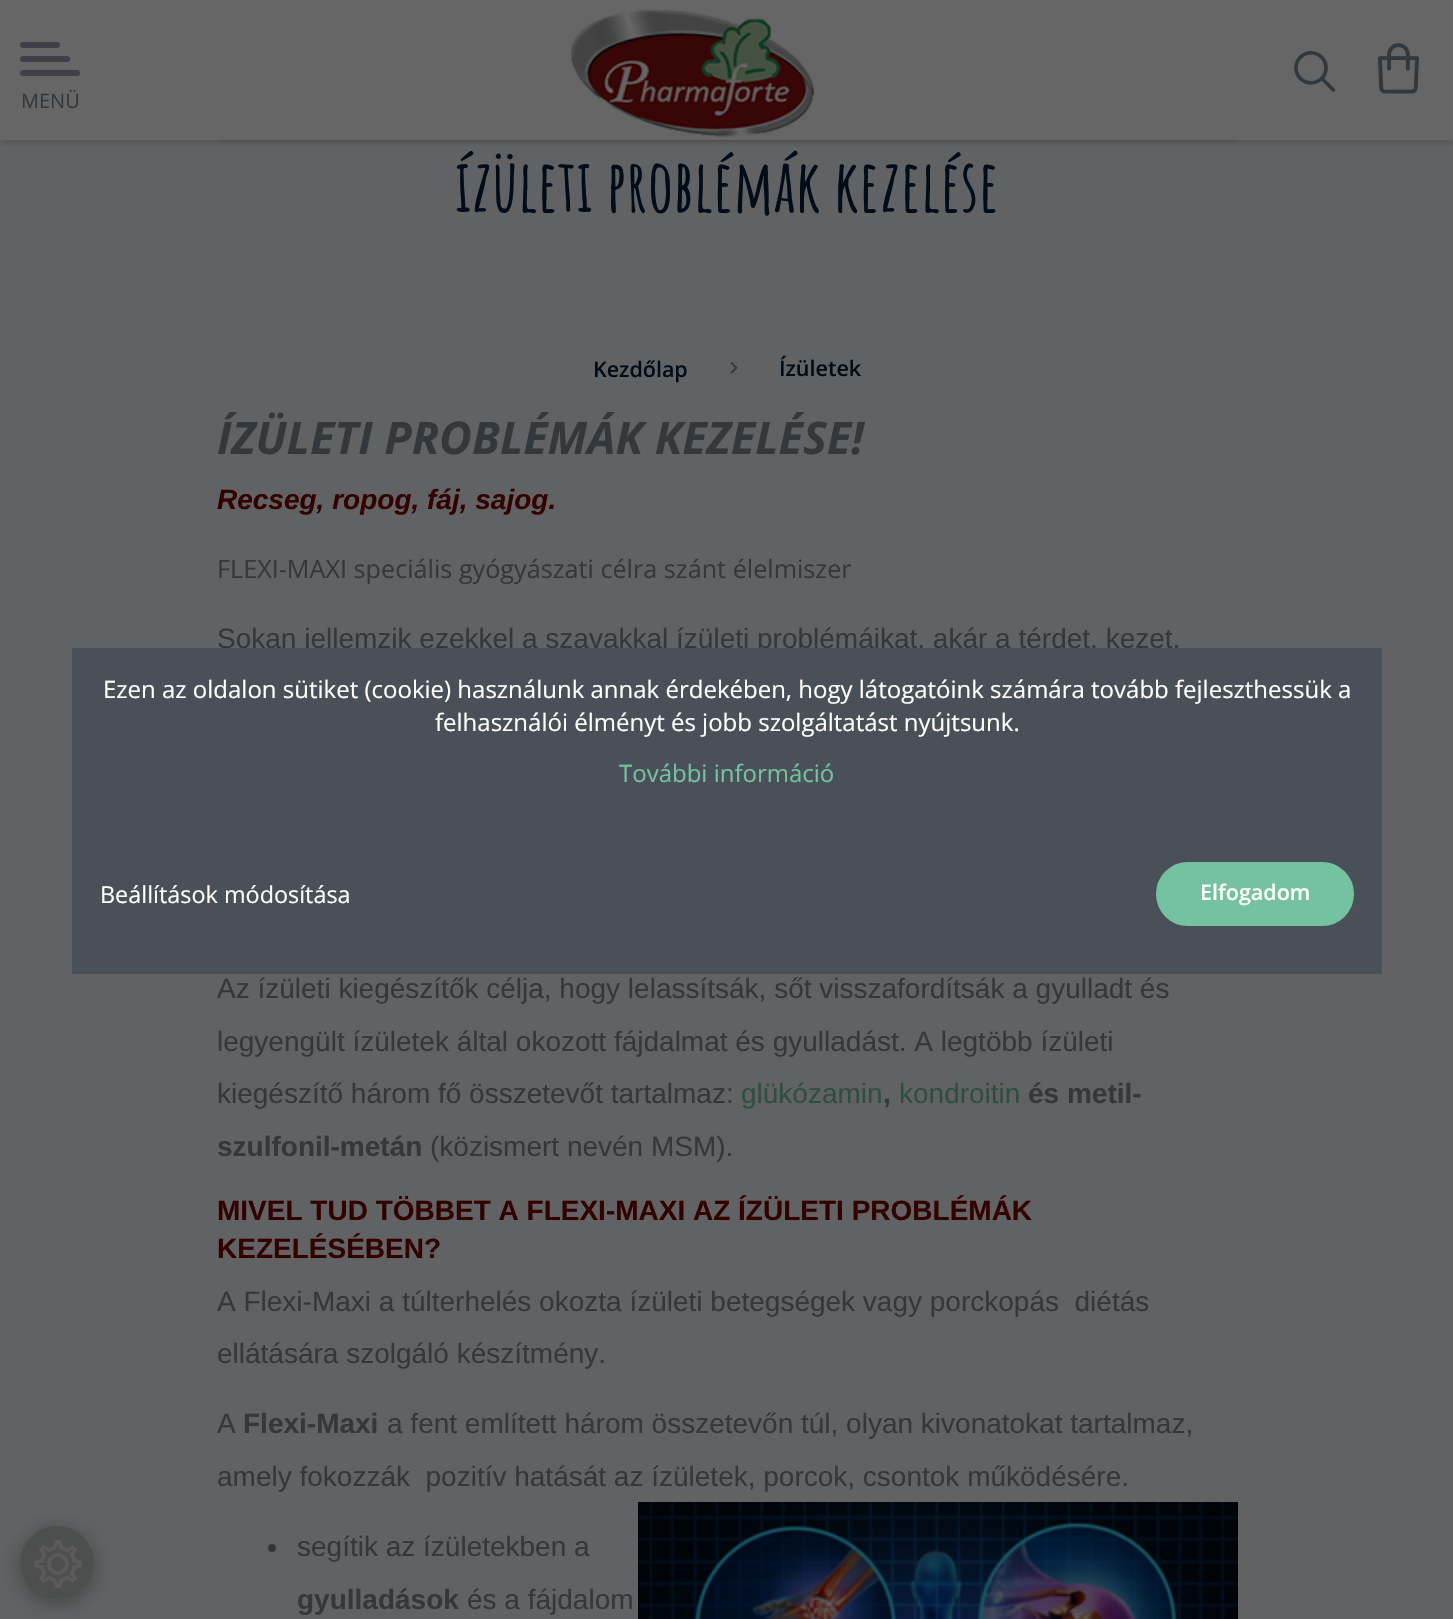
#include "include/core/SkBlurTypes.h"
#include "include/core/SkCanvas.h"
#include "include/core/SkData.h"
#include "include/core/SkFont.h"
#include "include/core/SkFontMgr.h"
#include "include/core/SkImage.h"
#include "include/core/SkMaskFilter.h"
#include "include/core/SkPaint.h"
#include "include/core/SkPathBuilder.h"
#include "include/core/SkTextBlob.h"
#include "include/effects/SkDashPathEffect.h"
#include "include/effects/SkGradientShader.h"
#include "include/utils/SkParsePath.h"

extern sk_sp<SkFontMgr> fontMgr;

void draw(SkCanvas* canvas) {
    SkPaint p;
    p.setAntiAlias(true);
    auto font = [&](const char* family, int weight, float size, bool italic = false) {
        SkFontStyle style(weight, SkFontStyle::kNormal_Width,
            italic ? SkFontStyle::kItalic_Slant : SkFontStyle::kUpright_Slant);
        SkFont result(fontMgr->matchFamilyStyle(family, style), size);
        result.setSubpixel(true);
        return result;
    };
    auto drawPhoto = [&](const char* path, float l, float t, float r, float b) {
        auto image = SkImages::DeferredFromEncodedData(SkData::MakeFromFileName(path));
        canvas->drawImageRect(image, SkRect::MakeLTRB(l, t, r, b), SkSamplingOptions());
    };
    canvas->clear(0xFF666666);
    p.setColor(0xFF5D5E60);
    canvas->drawRect(SkRect::MakeLTRB(218, 140, 1238, 142), p);
    p.setColor(0xFF616263);
    canvas->drawRect(SkRect::MakeLTRB(0, 142, 1453, 1619), p);
    canvas->save();
    canvas->clipRect(SkRect::MakeLTRB(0, 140, 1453, 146));
    p.setColor(0x33000000);
    p.setMaskFilter(SkMaskFilter::MakeBlur(kNormal_SkBlurStyle, 3));
    canvas->drawRect(SkRect::MakeLTRB(0, 2, 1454, 142), p);
    p.setMaskFilter(nullptr);
    canvas->restore();
    drawPhoto("media/1.png", 570, 9, 814, 137);
    drawPhoto("media/2.png", 1294, 51, 1336, 92);
    drawPhoto("media/3.png", 1378, 43, 1419, 94);
    p.setColor(0xFF3E4045);
    canvas->drawRoundRect(SkRect::MakeLTRB(20, 70, 80, 76), 3, 3, p);
    canvas->drawRoundRect(SkRect::MakeLTRB(20, 42, 60, 48), 3, 3, p);
    canvas->drawRoundRect(SkRect::MakeLTRB(20, 56, 70, 62), 3, 3, p);
    auto font1 = font("Open Sans", 400, 20);
    p.setColor(0xFF33383C);
    canvas->drawString("MENÜ", 21, 108, font1, p);
    canvas->save();
    canvas->clipPath(SkPathBuilder(SkPathFillType::kEvenOdd).moveTo(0, 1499).lineTo(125, 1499).lineTo(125, 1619).lineTo(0, 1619).close().moveTo(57, 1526).cubicTo(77.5f, 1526, 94, 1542.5f, 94, 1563).cubicTo(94, 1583.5f, 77.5f, 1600, 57, 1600).cubicTo(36.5f, 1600, 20, 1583.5f, 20, 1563).cubicTo(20, 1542.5f, 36.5f, 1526, 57, 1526).close().detach(), true);
    p.setColor(0x4D000000);
    p.setMaskFilter(SkMaskFilter::MakeBlur(kNormal_SkBlurStyle, 10));
    canvas->drawRoundRect(SkRect::MakeLTRB(20, 1530, 94, 1604), 37, 37, p);
    p.setMaskFilter(nullptr);
    canvas->restore();
    p.setColor(0x4D1F1F1F);
    canvas->drawCircle(57, 1563, 37, p);
    drawPhoto("media/4.png", 34, 1540, 82, 1588);
    auto font2 = font("Amatic SC", 700, 72);
    p.setColor(0xFF000C16);
    canvas->drawString("ízületi problémák kezelése", 455, 212, font2, p);
    auto font3 = font("Open Sans", 600, 21.5f);
    canvas->drawString("Kezdőlap", 593, 377, font3, p);
    drawPhoto("media/5.png", 730, 361, 738, 374);
    canvas->drawString("Ízületek", 779, 376, font3, p);
    auto font4 = font("Open Sans", 700, 45, true);
    p.setColor(0xFF33383C);
    canvas->drawString("ÍZÜLETI PROBLÉMÁK KEZELÉSE!", 217, 454, font4, p);
    auto font5 = font("Liberation Sans", 700, 28, true);
    p.setColor(0xFF330000);
    canvas->drawString("Recseg, ropog, fáj, sajog.", 217, 509, font5, p);
    auto font6 = font("Open Sans", 400, 25.2f);
    p.setColor(0xFF33383C);
    canvas->drawString("FLEXI-MAXI speciális gyógyászati célra szánt élelmiszer", 217, 578, font6, p);
    auto font7 = font("Liberation Sans", 400, 28);
    {
        const struct { const char* s; float x, y; } items[] = {
            {"Sokan jellemzik ezekkel a szavakkal ízületi problémáikat, akár a térdet, kezet,", 217, 648},
            {"Az ízületi kiegészítők célja, hogy lelassítsák, sőt visszafordítsák a gyulladt és", 217, 998},
            {"legyengült ízületek által okozott fájdalmat és gyulladást. A legtöbb ízületi", 217, 1051},
            {"kiegészítő három fő összetevőt tartalmaz:", 217, 1103},
        };
        for (auto [s, x, y] : items) {
            canvas->drawString(s, x, y, font7, p);
        }
    }
    p.setColor(0xFF2F4E41);
    canvas->drawString("glükózamin", 741, 1103, font7, p);
    auto font8 = font("Liberation Sans", 700, 28);
    p.setColor(0xFF33383C);
    canvas->drawString(",", 883, 1103, font8, p);
    p.setColor(0xFF2F4E41);
    canvas->drawString("kondroitin", 899, 1103, font7, p);
    p.setColor(0xFF33383C);
    canvas->drawString("és metil-", 1028, 1103, font8, p);
    canvas->drawString("szulfonil-metán", 217, 1156, font8, p);
    canvas->drawString("(közismert nevén MSM).", 430, 1156, font7, p);
    p.setColor(0xFF330000);
    canvas->drawString("MIVEL TUD TÖBBET A FLEXI-MAXI AZ ÍZÜLETI PROBLÉMÁK", 217, 1220, font8, p);
    canvas->drawString("KEZELÉSÉBEN?", 217, 1258, font8, p);
    p.setColor(0xFF33383C);
    {
        const struct { const char* s; float x, y; } items[] = {
            {"A Flexi-Maxi a túlterhelés okozta ízületi betegségek vagy porckopás  diétás", 217, 1311},
            {"ellátására szolgáló készítmény.", 217, 1363},
            {"A", 217, 1433},
        };
        for (auto [s, x, y] : items) {
            canvas->drawString(s, x, y, font7, p);
        }
    }
    canvas->drawString("Flexi-Maxi", 243, 1433, font8, p);
    canvas->drawString("a fent említett három összetevőn túl, olyan kivonatokat tartalmaz,", 387, 1433, font7, p);
    canvas->drawString("amely fokozzák  pozitív hatását az ízületek, porcok, csontok működésére.", 217, 1486, font7, p);
    drawPhoto("media/6.png", 638, 1502, 1238, 1619);
    canvas->drawCircle(272, 1548, 4, p);
    canvas->drawString("segítik az ízületekben a", 297, 1556, font7, p);
    canvas->drawString("gyulladások", 297, 1609, font8, p);
    canvas->drawString("és a fájdalom", 467, 1609, font7, p);
    p.setColor(0xFF495057);
    canvas->drawRect(SkRect::MakeLTRB(72, 648, 1382, 974), p);
    auto font9 = font("Open Sans", 400, 24);
    p.setColor(0xFFFFFFFF);
    canvas->drawString("Ezen az oldalon sütiket (cookie) használunk annak érdekében, hogy látogatóink számára tovább fejleszthessük a", 103, 698, font9, p);
    canvas->drawString("felhasználói élményt és jobb szolgáltatást nyújtsunk.", 435, 731, font9, p);
    p.setColor(0xFF75C2A2);
    canvas->drawString("További információ", 619, 782, font9, p);
    auto font10 = font("Open Sans", 400, 23.4f);
    p.setColor(0xFFFFFFFF);
    canvas->drawString("Beállítások módosítása", 100, 903, font10, p);
    p.setColor(0xFF75C2A2);
    canvas->drawRoundRect(SkRect::MakeLTRB(1158, 864, 1352, 924), 30, 30, p);
    p.setStyle(SkPaint::kStroke_Style);
    p.setStrokeWidth(4);
    canvas->drawRoundRect(SkRect::MakeLTRB(1158, 864, 1352, 924), 30, 30, p);
    p.setStyle(SkPaint::kFill_Style);
    p.setColor(0xFFFFFFFF);
    canvas->drawString("Elfogadom", 1200, 900, font3, p);
}
